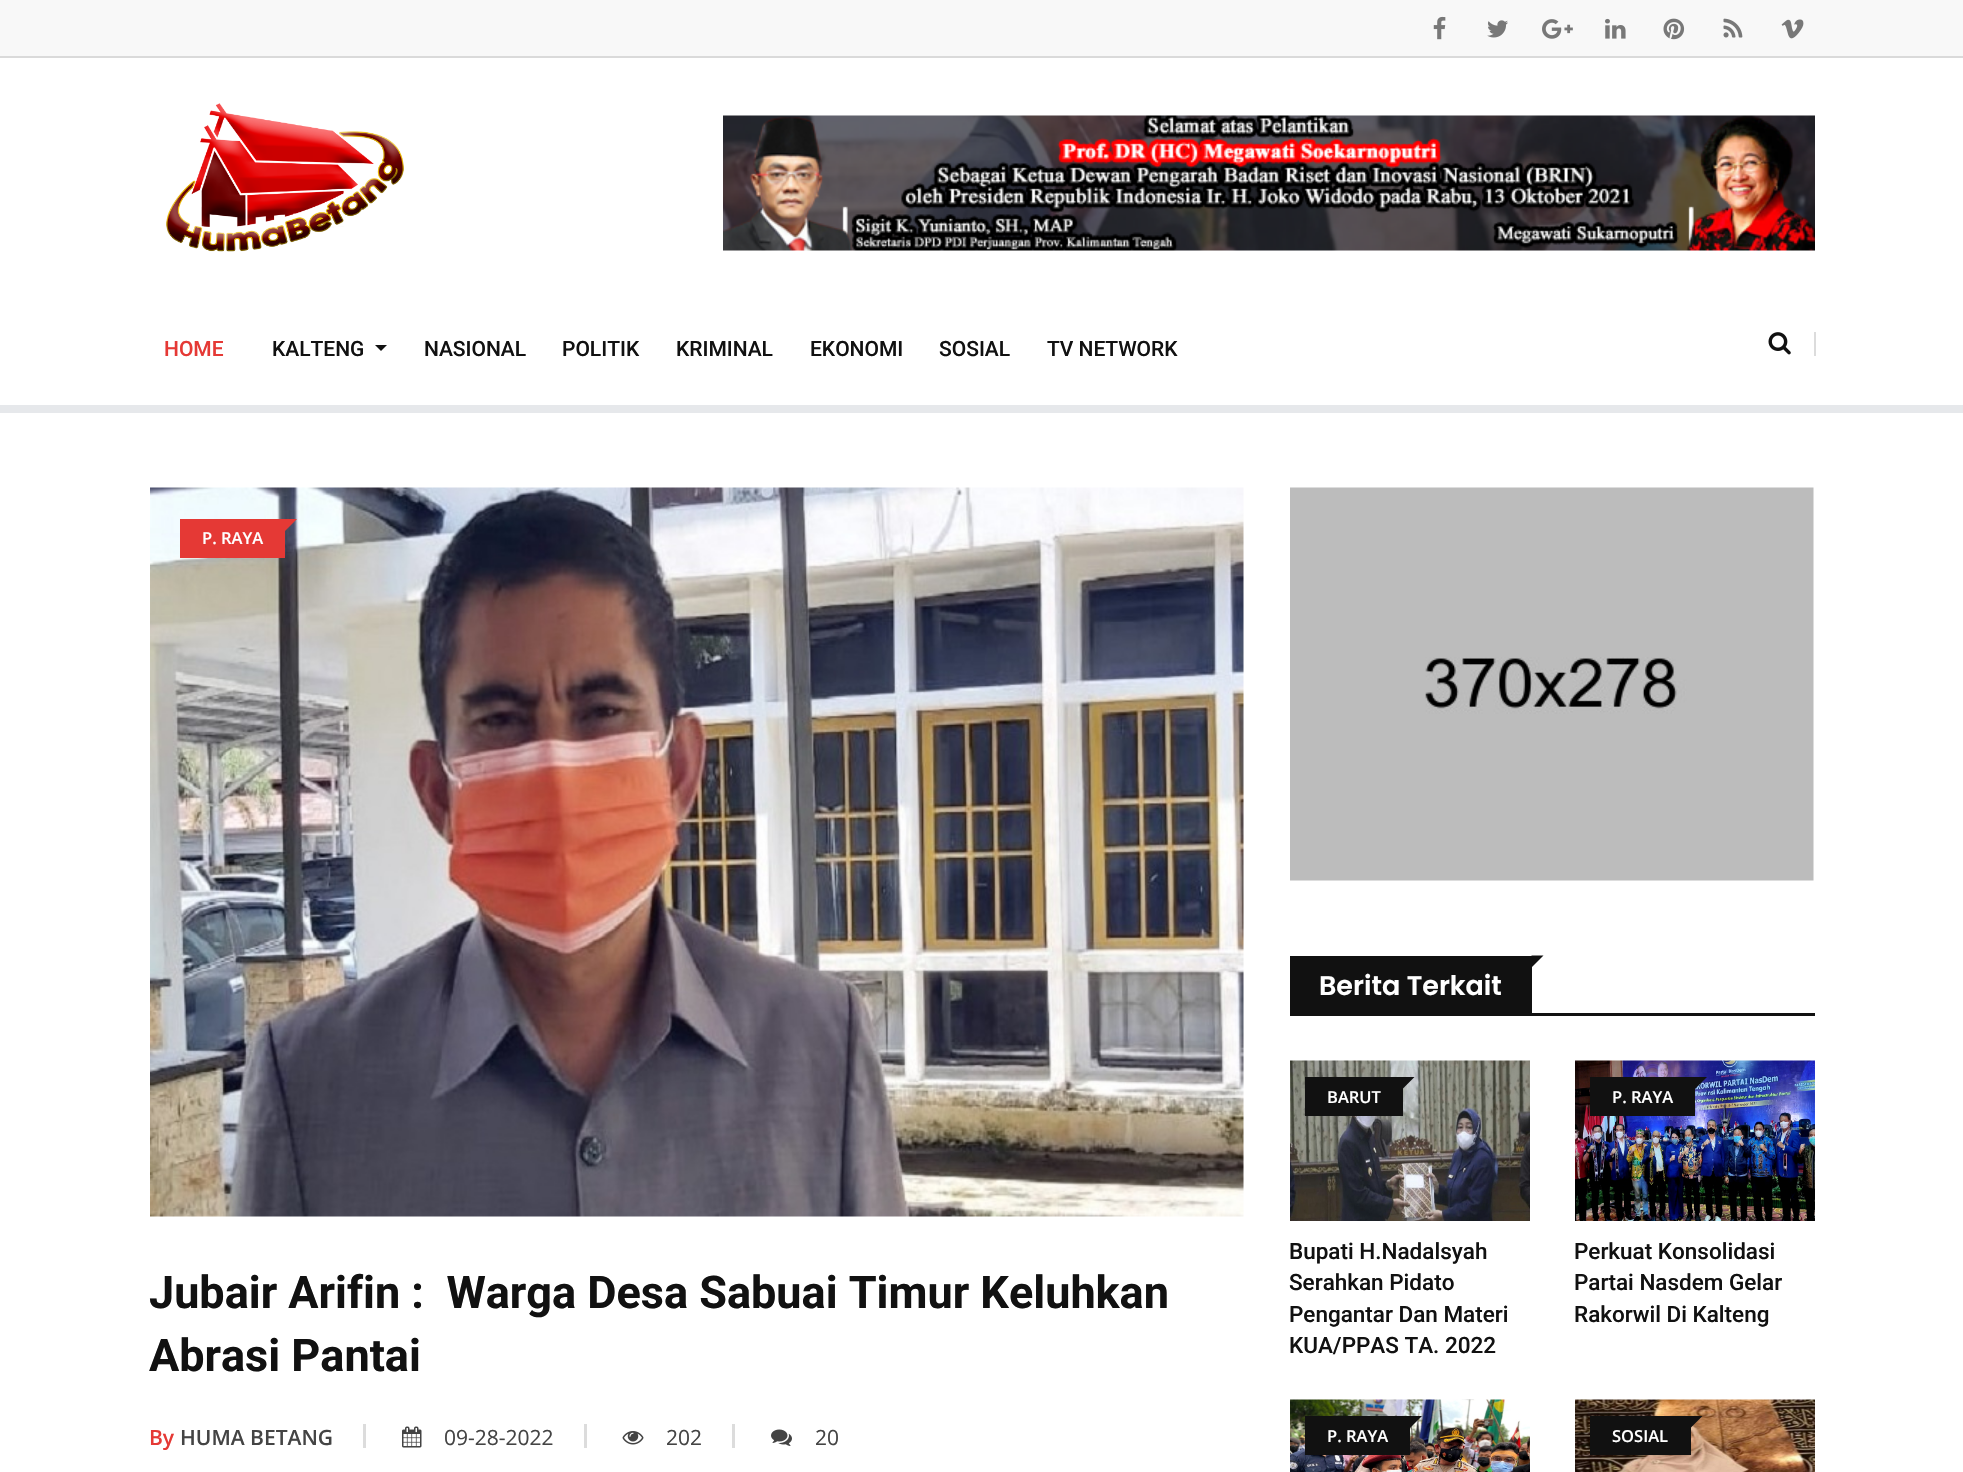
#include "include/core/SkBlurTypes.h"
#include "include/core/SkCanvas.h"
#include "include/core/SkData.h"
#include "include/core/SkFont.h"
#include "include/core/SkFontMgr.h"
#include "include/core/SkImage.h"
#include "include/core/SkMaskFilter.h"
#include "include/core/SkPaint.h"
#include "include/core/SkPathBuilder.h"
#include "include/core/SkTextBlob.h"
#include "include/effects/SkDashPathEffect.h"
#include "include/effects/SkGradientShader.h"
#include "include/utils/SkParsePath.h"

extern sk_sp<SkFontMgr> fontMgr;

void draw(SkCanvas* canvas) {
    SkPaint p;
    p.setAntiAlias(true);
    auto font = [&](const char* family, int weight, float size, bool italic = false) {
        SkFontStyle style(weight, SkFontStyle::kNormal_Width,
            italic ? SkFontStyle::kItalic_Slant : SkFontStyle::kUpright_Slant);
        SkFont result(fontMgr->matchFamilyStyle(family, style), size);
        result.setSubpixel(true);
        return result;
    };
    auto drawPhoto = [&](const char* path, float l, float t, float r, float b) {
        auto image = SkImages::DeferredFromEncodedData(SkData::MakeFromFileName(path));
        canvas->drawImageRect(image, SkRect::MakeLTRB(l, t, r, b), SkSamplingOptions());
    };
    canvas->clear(0xFFE6E8EB);
    p.setColor(0xFFF8F8F8);
    canvas->drawRect(SkRect::MakeLTRB(0, 0, 1963, 56), p);
    drawPhoto("media/1.png", 1433, 16, 1446, 40);
    drawPhoto("media/2.png", 1487, 20, 1508, 38);
    drawPhoto("media/3.png", 1542, 19, 1573, 39);
    drawPhoto("media/4.png", 1605, 18, 1626, 39);
    drawPhoto("media/5.png", 1663, 18, 1685, 40);
    drawPhoto("media/6.png", 1723, 18, 1743, 38);
    drawPhoto("media/7.png", 1781, 19, 1804, 39);
    p.setColor(0xFFDADADA);
    canvas->drawRect(SkRect::MakeLTRB(0, 56, 1963, 58), p);
    p.setColor(0xFFFFFFFF);
    canvas->drawRect(SkRect::MakeLTRB(0, 58, 1963, 405), p);
    drawPhoto("media/8.png", 166, 103, 404, 252);
    drawPhoto("media/9.png", 723, 115, 1815, 251);
    auto font1 = font("Roboto", 500, 21);
    p.setColor(0xFFE53935);
    canvas->drawString("HOME", 164, 356, font1, p);
    p.setColor(0xFF111111);
    canvas->drawString("KALTENG", 272, 356, font1, p);
    canvas->drawPath(SkPathBuilder().moveTo(375, 345).lineTo(387, 345).lineTo(381, 351).close().detach(), p);
    {
        const struct { const char* s; float x, y; } items[] = {
            {"NASIONAL", 424, 356},
            {"POLITIK", 562, 356},
            {"KRIMINAL", 676, 356},
            {"EKONOMI", 810, 356},
            {"SOSIAL", 939, 356},
            {"TV NETWORK", 1047, 356},
        };
        for (auto [s, x, y] : items) {
            canvas->drawString(s, x, y, font1, p);
        }
    }
    p.setColor(0xFFDCDCDC);
    canvas->drawRect(SkRect::MakeLTRB(1814, 332, 1816, 356), p);
    drawPhoto("media/10.png", 1768, 332, 1791, 355);
    p.setColor(0xFFFFFFFF);
    canvas->drawRect(SkRect::MakeLTRB(0, 413, 1963, 1472), p);
    drawPhoto("media/11.png", 150, 487, 1244, 1217);
    p.setColor(0xFFE53935);
    canvas->drawRect(SkRect::MakeLTRB(180, 519, 285, 558), p);
    canvas->drawPath(SkPathBuilder().moveTo(285, 519).lineTo(297, 519).lineTo(285, 531).close().detach(), p);
    auto font2 = font("Open Sans", 600, 16.5f);
    p.setColor(0xFFFFFFFF);
    canvas->drawString("P. RAYA", 202, 544, font2, p);
    auto font3 = font("Roboto", 700, 45);
    p.setColor(0xFF111111);
    canvas->drawString("Jubair Arifin :  Warga Desa Sabuai Timur Keluhkan", 149, 1308, font3, p);
    canvas->drawString("Abrasi Pantai", 149, 1371, font3, p);
    p.setColor(0xFFDCDCDC);
    canvas->drawRect(SkRect::MakeLTRB(363, 1424, 366, 1448), p);
    auto font4 = font("Open Sans", 600, 21);
    p.setColor(0xFFE53935);
    canvas->drawString("By", 149, 1445, font4, p);
    p.setColor(0xFF444444);
    canvas->drawString("HUMA BETANG", 180, 1445, font4, p);
    p.setColor(0xFFDCDCDC);
    canvas->drawRect(SkRect::MakeLTRB(584, 1424, 587, 1448), p);
    drawPhoto("media/12.png", 402, 1426, 422, 1448);
    auto font5 = font("Open Sans", 400, 21);
    p.setColor(0xFF444444);
    canvas->drawString("09-28-2022", 444, 1445, font5, p);
    p.setColor(0xFFDCDCDC);
    canvas->drawRect(SkRect::MakeLTRB(732, 1424, 735, 1448), p);
    drawPhoto("media/13.png", 622, 1431, 644, 1445);
    p.setColor(0xFF444444);
    canvas->drawString("202", 666, 1445, font5, p);
    drawPhoto("media/14.png", 771, 1429, 792, 1446);
    canvas->drawString("20", 815, 1445, font5, p);
    drawPhoto("media/15.png", 1290, 487, 1814, 881);
    p.setColor(0xFF111111);
    canvas->drawRect(SkRect::MakeLTRB(1290, 956, 1532, 1013), p);
    canvas->drawPath(SkPathBuilder().moveTo(1531.5f, 955.5f).lineTo(1543.5f, 955.5f).lineTo(1531.5f, 967.5f).close().detach(), p);
    auto font6 = font("Poppins", 600, 27);
    p.setColor(0xFFFFFFFF);
    canvas->drawString("Berita Terkait", 1319, 995, font6, p);
    p.setColor(0xFF111111);
    canvas->drawRect(SkRect::MakeLTRB(1290, 1013, 1815, 1016), p);
    drawPhoto("media/16.png", 1290, 1060, 1530, 1221);
    canvas->drawRect(SkRect::MakeLTRB(1305, 1077, 1403, 1116), p);
    canvas->drawPath(SkPathBuilder().moveTo(1402.5f, 1077).lineTo(1414.5f, 1077).lineTo(1402.5f, 1089).close().detach(), p);
    p.setColor(0xFFFFFFFF);
    canvas->drawString("BARUT", 1327, 1103, font2, p);
    auto font7 = font("Roboto", 500, 22.5f);
    p.setColor(0xFF111111);
    {
        const struct { const char* s; float x, y; } items[] = {
            {"Bupati H.Nadalsyah", 1289, 1259},
            {"Serahkan Pidato", 1289, 1290},
            {"Pengantar Dan Materi", 1289, 1322},
            {"KUA/PPAS TA. 2022", 1289, 1353},
        };
        for (auto [s, x, y] : items) {
            canvas->drawString(s, x, y, font7, p);
        }
    }
    drawPhoto("media/17.png", 1575, 1060, 1815, 1221);
    canvas->drawRect(SkRect::MakeLTRB(1590, 1077, 1695, 1116), p);
    canvas->drawPath(SkPathBuilder().moveTo(1695, 1077).lineTo(1707, 1077).lineTo(1695, 1089).close().detach(), p);
    p.setColor(0xFFFFFFFF);
    canvas->drawString("P. RAYA", 1612, 1103, font2, p);
    p.setColor(0xFF111111);
    {
        const struct { const char* s; float x, y; } items[] = {
            {"Perkuat Konsolidasi", 1574, 1259},
            {"Partai Nasdem Gelar", 1574, 1290},
            {"Rakorwil Di Kalteng", 1574, 1322},
        };
        for (auto [s, x, y] : items) {
            canvas->drawString(s, x, y, font7, p);
        }
    }
    drawPhoto("media/18.png", 1290, 1399, 1530, 1472);
    canvas->drawRect(SkRect::MakeLTRB(1305, 1416, 1410, 1455), p);
    canvas->drawPath(SkPathBuilder().moveTo(1410, 1416).lineTo(1422, 1416).lineTo(1410, 1428).close().detach(), p);
    p.setColor(0xFFFFFFFF);
    canvas->drawString("P. RAYA", 1327, 1442, font2, p);
    drawPhoto("media/19.png", 1575, 1399, 1815, 1472);
    p.setColor(0xFF111111);
    canvas->drawRect(SkRect::MakeLTRB(1590, 1416, 1691, 1455), p);
    canvas->drawPath(SkPathBuilder().moveTo(1690.5f, 1416).lineTo(1702.5f, 1416).lineTo(1690.5f, 1428).close().detach(), p);
    p.setColor(0xFFFFFFFF);
    canvas->drawString("SOSIAL", 1612, 1442, font2, p);
}
